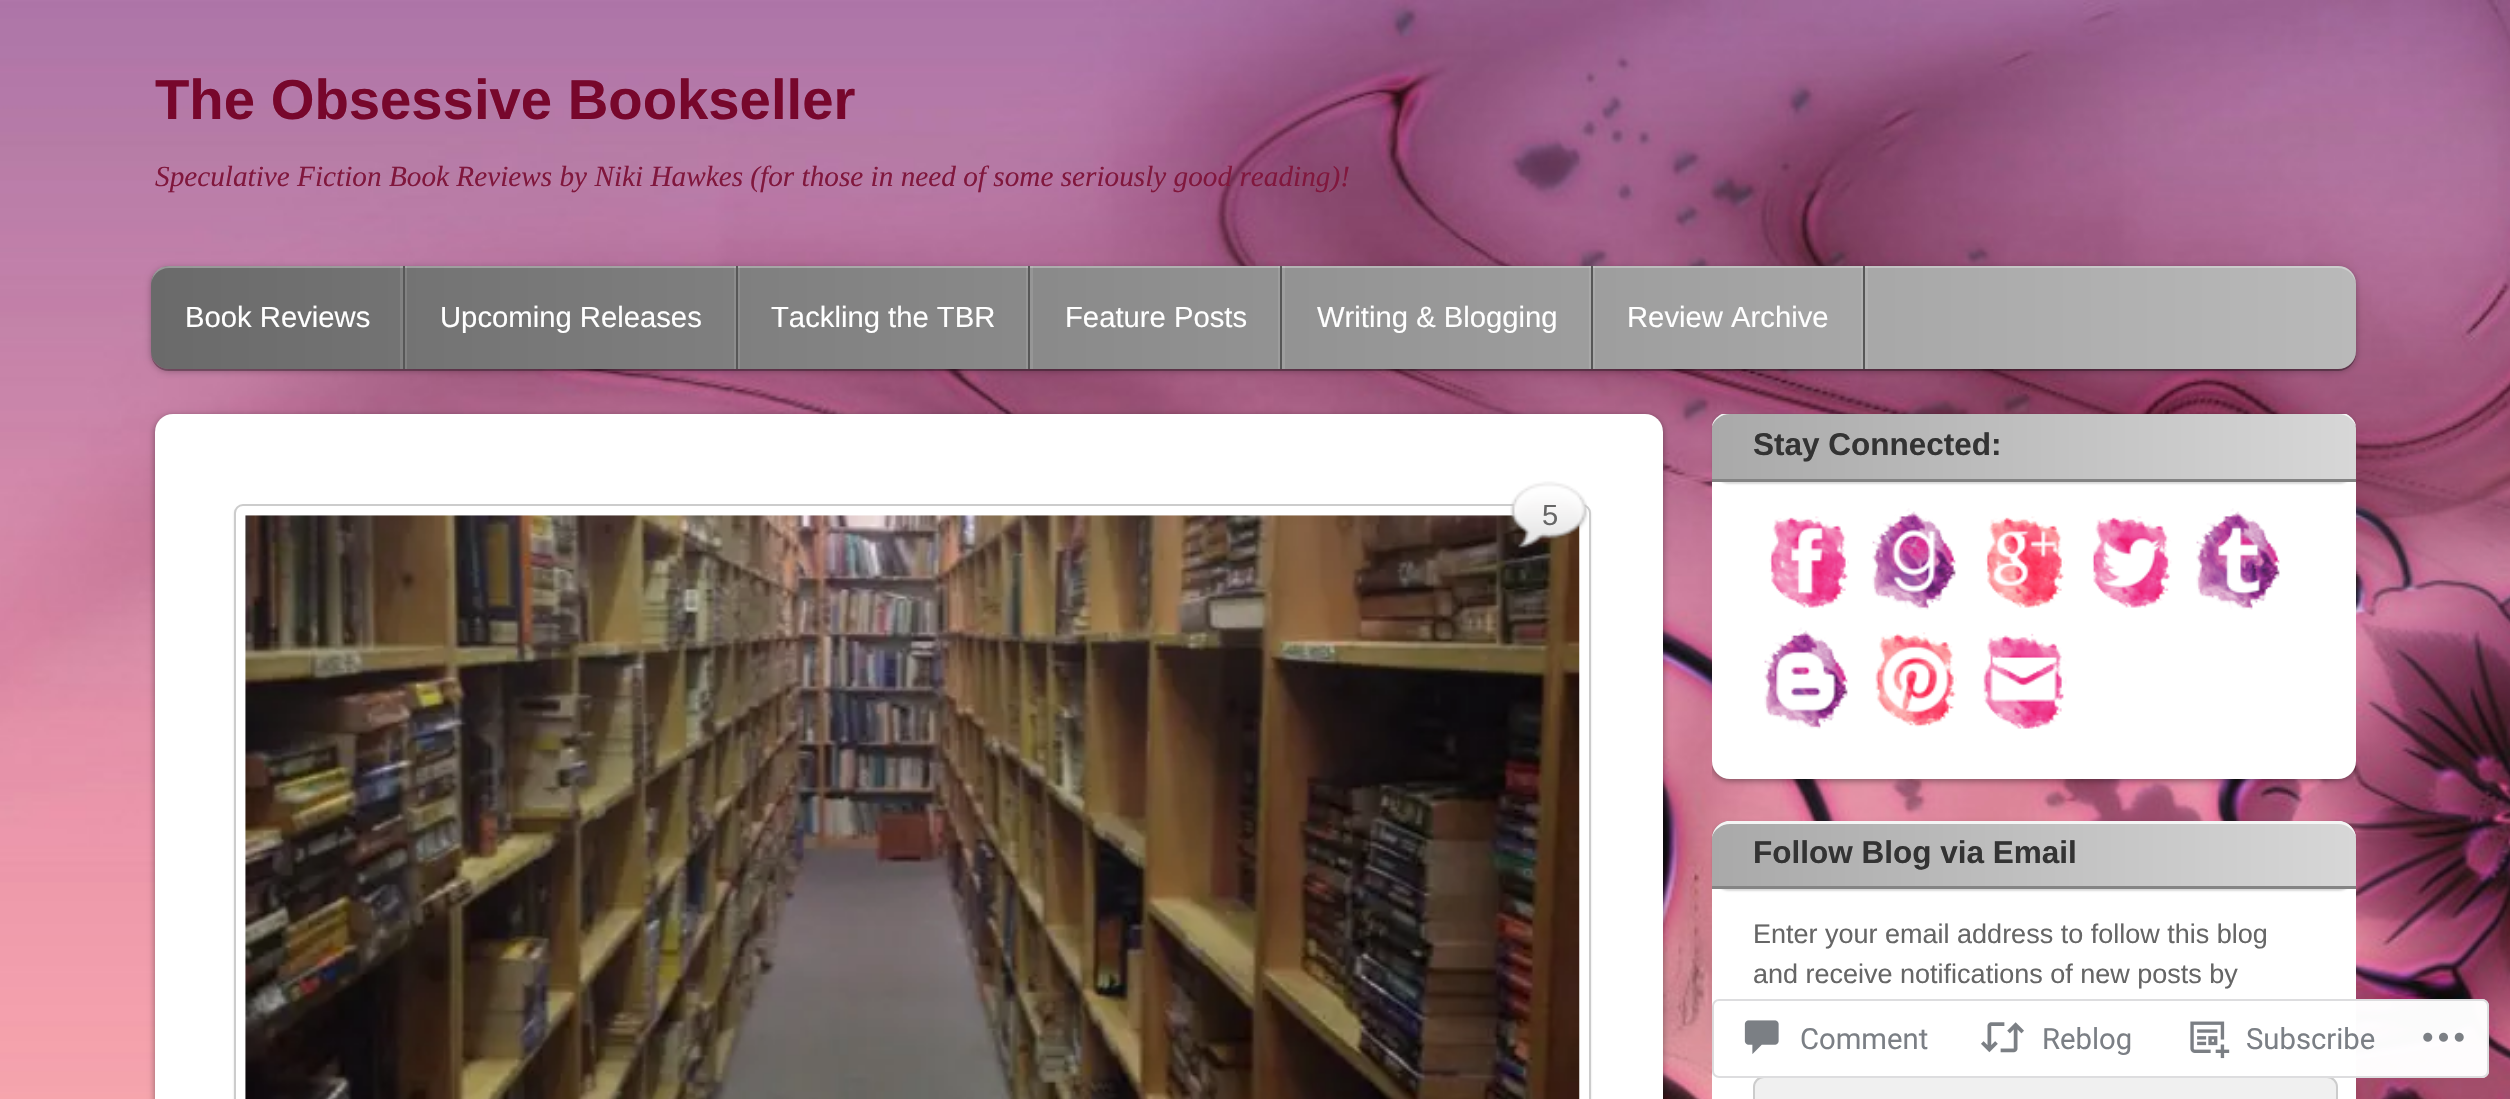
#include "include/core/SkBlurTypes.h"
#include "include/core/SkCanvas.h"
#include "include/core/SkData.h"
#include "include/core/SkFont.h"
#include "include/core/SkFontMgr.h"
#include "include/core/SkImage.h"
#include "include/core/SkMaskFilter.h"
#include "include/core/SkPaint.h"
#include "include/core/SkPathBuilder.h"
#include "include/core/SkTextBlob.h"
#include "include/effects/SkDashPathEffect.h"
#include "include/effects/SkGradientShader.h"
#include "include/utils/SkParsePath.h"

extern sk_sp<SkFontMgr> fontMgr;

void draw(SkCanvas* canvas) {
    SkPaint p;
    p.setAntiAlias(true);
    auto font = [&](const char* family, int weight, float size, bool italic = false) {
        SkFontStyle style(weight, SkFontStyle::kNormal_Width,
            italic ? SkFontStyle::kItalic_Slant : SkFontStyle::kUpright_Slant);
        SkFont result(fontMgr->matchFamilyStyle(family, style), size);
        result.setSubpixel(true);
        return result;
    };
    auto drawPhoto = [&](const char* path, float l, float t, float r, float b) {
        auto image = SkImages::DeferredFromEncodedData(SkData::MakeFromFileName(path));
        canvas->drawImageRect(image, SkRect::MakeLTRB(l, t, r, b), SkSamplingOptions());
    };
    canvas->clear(0xFFFFFFFF);
    drawPhoto("media/1.png", 0, 0, 2510, 1099);
    auto font1 = font("Liberation Sans", 700, 56.25f);
    p.setColor(0xFF77072C);
    canvas->drawString("The Obsessive Bookseller", 155, 119, font1, p);
    auto font2 = font("Liberation Serif", 400, 29.25f, true);
    p.setColor(0xFF80173D);
    canvas->drawString("Speculative Fiction Book Reviews by Niki Hawkes (for those in need of some seriously good reading)!", 155, 186, font2, p);
    p.setColor(0x4D000000);
    p.setMaskFilter(SkMaskFilter::MakeBlur(kNormal_SkBlurStyle, 3.5f));
    canvas->drawRoundRect(SkRect::MakeLTRB(151, 268, 2356, 371), 18, 18, p);
    p.setMaskFilter(nullptr);
    canvas->drawPath(SkPathBuilder().moveTo(151, 354).cubicTo(152, 364, 159, 371, 169, 371).lineTo(2338, 371).cubicTo(2348, 371, 2356, 363, 2356, 353).lineTo(2356, 283).lineTo(2356, 351).cubicTo(2356, 361, 2348, 369, 2338, 369).lineTo(169, 369).cubicTo(160, 369, 153, 363, 151, 354).close().detach(), p);
    {
        const SkColor colors[] = {0xFFB9B9B9, 0xFF6A6A6A};
        const float stops[] = {0, 1};
        const SkPoint ends[] = {{2356, 317}, {151, 317}};
        p.setShader(SkGradientShader::MakeLinear(ends, colors, stops, 2, SkTileMode::kClamp));
        p.setAlpha(255);
    }
    canvas->drawRoundRect(SkRect::MakeLTRB(151, 266, 2356, 369), 18, 18, p);
    p.setShader(nullptr);
    p.setColor(0x4DFFFFFF);
    canvas->drawPath(SkPathBuilder().moveTo(169, 268).lineTo(2338, 268).cubicTo(2348, 268, 2356, 276, 2356, 286).cubicTo(2356, 275, 2350, 266, 2338, 266).lineTo(169, 266).cubicTo(157, 266, 151, 275, 151, 286).cubicTo(151, 276, 159, 268, 169, 268).close().detach(), p);
    {
        const struct { float l, t, r, b; SkColor color; } items[] = {
            {405, 266, 407, 369, 0x1AFFFFFF},
            {400, 266, 403, 369, 0x1AFFFFFF},
            {403, 266, 405, 369, 0xFF575757},
        };
        for (auto [l, t, r, b, color] : items) {
            p.setColor(color);
            canvas->drawRect(SkRect::MakeLTRB(l, t, r, b), p);
        }
    }
    auto font3 = font("Liberation Sans", 400, 29.25f);
    p.setColor(0xFFFFFFFF);
    canvas->drawString("Book Reviews", 185, 327, font3, p);
    {
        const struct { float l, t, r, b; SkColor color; } items[] = {
            {738, 266, 740, 369, 0x1AFFFFFF},
            {734, 266, 736, 369, 0x1AFFFFFF},
            {736, 266, 738, 369, 0xFF575757},
        };
        for (auto [l, t, r, b, color] : items) {
            p.setColor(color);
            canvas->drawRect(SkRect::MakeLTRB(l, t, r, b), p);
        }
    }
    p.setColor(0xFFFFFFFF);
    canvas->drawString("Upcoming Releases", 440, 327, font3, p);
    {
        const struct { float l, t, r, b; SkColor color; } items[] = {
            {1030, 266, 1033, 369, 0x1AFFFFFF},
            {1026, 266, 1028, 369, 0x1AFFFFFF},
            {1028, 266, 1030, 369, 0xFF575757},
        };
        for (auto [l, t, r, b, color] : items) {
            p.setColor(color);
            canvas->drawRect(SkRect::MakeLTRB(l, t, r, b), p);
        }
    }
    p.setColor(0xFFFFFFFF);
    canvas->drawString("Tackling the TBR", 771, 327, font3, p);
    {
        const struct { float l, t, r, b; SkColor color; } items[] = {
            {1282, 266, 1285, 369, 0x1AFFFFFF},
            {1278, 266, 1280, 369, 0x1AFFFFFF},
            {1280, 266, 1282, 369, 0xFF575757},
        };
        for (auto [l, t, r, b, color] : items) {
            p.setColor(color);
            canvas->drawRect(SkRect::MakeLTRB(l, t, r, b), p);
        }
    }
    p.setColor(0xFFFFFFFF);
    canvas->drawString("Feature Posts", 1065, 327, font3, p);
    {
        const struct { float l, t, r, b; SkColor color; } items[] = {
            {1593, 266, 1595, 369, 0x1AFFFFFF},
            {1589, 266, 1591, 369, 0x1AFFFFFF},
            {1591, 266, 1593, 369, 0xFF575757},
        };
        for (auto [l, t, r, b, color] : items) {
            p.setColor(color);
            canvas->drawRect(SkRect::MakeLTRB(l, t, r, b), p);
        }
    }
    p.setColor(0xFFFFFFFF);
    canvas->drawString("Writing & Blogging", 1317, 327, font3, p);
    {
        const struct { float l, t, r, b; SkColor color; } items[] = {
            {1865, 266, 1868, 369, 0x1AFFFFFF},
            {1861, 266, 1863, 369, 0x1AFFFFFF},
            {1863, 266, 1865, 369, 0xFF575757},
        };
        for (auto [l, t, r, b, color] : items) {
            p.setColor(color);
            canvas->drawRect(SkRect::MakeLTRB(l, t, r, b), p);
        }
    }
    p.setColor(0xFFFFFFFF);
    canvas->drawString("Review Archive", 1627, 327, font3, p);
    p.setColor(0x66000000);
    p.setMaskFilter(SkMaskFilter::MakeBlur(kNormal_SkBlurStyle, 3.5f));
    canvas->drawRoundRect(SkRect::MakeLTRB(155, 416, 1663, 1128), 18, 18, p);
    p.setMaskFilter(nullptr);
    p.setColor(0xFFFFFFFF);
    canvas->drawRoundRect(SkRect::MakeLTRB(155, 414, 1663, 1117), 18, 18, p);
    p.setColor(0x26000000);
    p.setMaskFilter(SkMaskFilter::MakeBlur(kNormal_SkBlurStyle, 1));
    canvas->drawRoundRect(SkRect::MakeLTRB(234, 506, 1591, 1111), 9, 9, p);
    p.setMaskFilter(nullptr);
    p.setColor(0xFFFFFFFF);
    canvas->drawRoundRect(SkRect::MakeLTRB(235, 505, 1590, 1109), 8, 8, p);
    p.setStyle(SkPaint::kStroke_Style);
    p.setStrokeWidth(2);
    p.setColor(0xFFCCCCCC);
    canvas->drawRoundRect(SkRect::MakeLTRB(235, 505, 1590, 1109), 8, 8, p);
    drawPhoto("media/2.png", 245, 515, 1580, 1099);
    drawPhoto("media/3.png", 1510, 481, 1588, 549);
    p.setStyle(SkPaint::kFill_Style);
    p.setColor(0xFF666666);
    canvas->drawString("5", 1542, 525, font3, p);
    canvas->save();
    canvas->clipRect(SkRect::MakeLTRB(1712, 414, 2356, 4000));
    p.setColor(0x66000000);
    p.setMaskFilter(SkMaskFilter::MakeBlur(kNormal_SkBlurStyle, 3.5f));
    canvas->drawRoundRect(SkRect::MakeLTRB(1712, 416, 2356, 781), 18, 18, p);
    p.setMaskFilter(nullptr);
    canvas->restore();
    p.setColor(0xFFFFFFFF);
    canvas->drawRoundRect(SkRect::MakeLTRB(1712, 414, 2356, 779), 18, 18, p);
    p.setColor(0x26000000);
    p.setMaskFilter(SkMaskFilter::MakeBlur(kNormal_SkBlurStyle, 1));
    canvas->drawRoundRect(SkRect::MakeLTRB(1712, 414, 2356, 484), 18, 18, p);
    p.setMaskFilter(nullptr);
    canvas->save();
    canvas->clipRect(SkRect::MakeLTRB(1712, 414, 2356, 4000));
    {
        const SkColor colors[] = {0xFFD7D7D7, 0xFFA9A9A9};
        const float stops[] = {0, 1};
        const SkPoint ends[] = {{2356, 447}, {1712, 447}};
        p.setShader(SkGradientShader::MakeLinear(ends, colors, stops, 2, SkTileMode::kClamp));
        p.setAlpha(255);
    }
    canvas->drawPath(SkPathBuilder().moveTo(1730, 412).lineTo(2338, 412).cubicTo(2348, 412, 2356, 420, 2356, 430).lineTo(2356, 482).lineTo(1712, 482).lineTo(1712, 430).cubicTo(1712, 420, 1720, 412, 1730, 412).close().detach(), p);
    p.setShader(nullptr);
    p.setColor(0xFFF5F5F5);
    canvas->drawPath(SkPathBuilder().moveTo(1730, 412).lineTo(2338, 412).cubicTo(2346, 412, 2356, 419, 2356, 427).cubicTo(2354, 420, 2347, 414, 2338, 414).lineTo(1730, 414).cubicTo(1721, 414, 1714, 420, 1712, 427).cubicTo(1712, 419, 1722, 412, 1730, 412).close().detach(), p);
    canvas->restore();
    p.setColor(0xFF848484);
    canvas->drawRect(SkRect::MakeLTRB(1712, 479, 2356, 482), p);
    auto font4 = font("Liberation Sans", 700, 31.5f);
    p.setColor(0xFF333333);
    canvas->drawString("Stay Connected:", 1753, 455, font4, p);
    drawPhoto("media/4.png", 1769, 516, 1849, 608);
    drawPhoto("media/5.png", 1872, 508, 1956, 610);
    drawPhoto("media/6.png", 1985, 516, 2065, 608);
    drawPhoto("media/7.png", 2092, 516, 2172, 608);
    drawPhoto("media/8.png", 2196, 508, 2280, 610);
    drawPhoto("media/9.png", 1764, 627, 1848, 729);
    drawPhoto("media/10.png", 1875, 632, 1957, 727);
    drawPhoto("media/11.png", 1983, 633, 2067, 729);
    canvas->save();
    canvas->clipRect(SkRect::MakeLTRB(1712, 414, 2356, 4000));
    p.setColor(0x66000000);
    p.setMaskFilter(SkMaskFilter::MakeBlur(kNormal_SkBlurStyle, 3.5f));
    canvas->drawRoundRect(SkRect::MakeLTRB(1712, 826, 2356, 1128), 18, 18, p);
    p.setMaskFilter(nullptr);
    canvas->restore();
    p.setColor(0xFFFFFFFF);
    canvas->drawRoundRect(SkRect::MakeLTRB(1712, 824, 2356, 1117), 18, 18, p);
    p.setColor(0x26000000);
    p.setMaskFilter(SkMaskFilter::MakeBlur(kNormal_SkBlurStyle, 1));
    canvas->drawRoundRect(SkRect::MakeLTRB(1712, 824, 2356, 891), 18, 18, p);
    p.setMaskFilter(nullptr);
    {
        const SkColor colors[] = {0xFFD7D7D7, 0xFFA9A9A9};
        const float stops[] = {0, 1};
        const SkPoint ends[] = {{2356, 855}, {1712, 855}};
        p.setShader(SkGradientShader::MakeLinear(ends, colors, stops, 2, SkTileMode::kClamp));
        p.setAlpha(255);
    }
    canvas->drawPath(SkPathBuilder().moveTo(1730, 821).lineTo(2338, 821).cubicTo(2348, 821, 2356, 829, 2356, 839).lineTo(2356, 889).lineTo(1712, 889).lineTo(1712, 839).cubicTo(1712, 829, 1720, 821, 1730, 821).close().detach(), p);
    p.setShader(nullptr);
    p.setColor(0xFFF5F5F5);
    canvas->drawPath(SkPathBuilder().moveTo(1730, 824).cubicTo(1721, 824, 1714, 830, 1712, 837).lineTo(1712, 836).cubicTo(1714, 828, 1719, 823, 1727, 821).lineTo(2341, 821).cubicTo(2349, 823, 2354, 828, 2356, 836).lineTo(2356, 837).cubicTo(2354, 830, 2347, 824, 2338, 824).close().detach(), p);
    p.setColor(0xFF848484);
    canvas->drawRect(SkRect::MakeLTRB(1712, 886, 2356, 889), p);
    p.setColor(0xFF333333);
    canvas->drawString("Follow Blog via Email", 1753, 863, font4, p);
    auto font5 = font("Liberation Sans", 400, 27);
    p.setColor(0xFF666666);
    canvas->drawString("Enter your email address to follow this blog", 1753, 943, font5, p);
    canvas->drawString("and receive notifications of new posts by", 1753, 983, font5, p);
    p.setColor(0xFFF0F0F0);
    canvas->drawRoundRect(SkRect::MakeLTRB(1754, 1077, 2337, 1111), 10, 10, p);
    p.setStyle(SkPaint::kStroke_Style);
    p.setColor(0xFFCCCCCC);
    canvas->drawRoundRect(SkRect::MakeLTRB(1754, 1077, 2337, 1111), 10, 10, p);
    p.setStyle(SkPaint::kFill_Style);
    p.setColor(0xFAFFFFFF);
    canvas->drawRoundRect(SkRect::MakeLTRB(1712, 999, 2489, 1078), 7, 7, p);
    p.setStyle(SkPaint::kStroke_Style);
    p.setColor(0xFADCDCDE);
    canvas->drawRoundRect(SkRect::MakeLTRB(1713, 1000, 2488, 1077), 6, 6, p);
    drawPhoto("media/12.png", 1744, 1020, 1779, 1054);
    auto font6 = font("Roboto", 400, 29.25f);
    p.setStyle(SkPaint::kFill_Style);
    p.setColor(0xFF7B7F85);
    canvas->drawString("Comment", 1800, 1049, font6, p);
    drawPhoto("media/13.png", 1981, 1022, 2024, 1053);
    canvas->drawString("Reblog", 2042, 1049, font6, p);
    drawPhoto("media/14.png", 2190, 1021, 2230, 1059);
    canvas->drawString("Subscribe", 2246, 1049, font6, p);
    drawPhoto("media/15.png", 2423, 1032, 2464, 1042);
}
